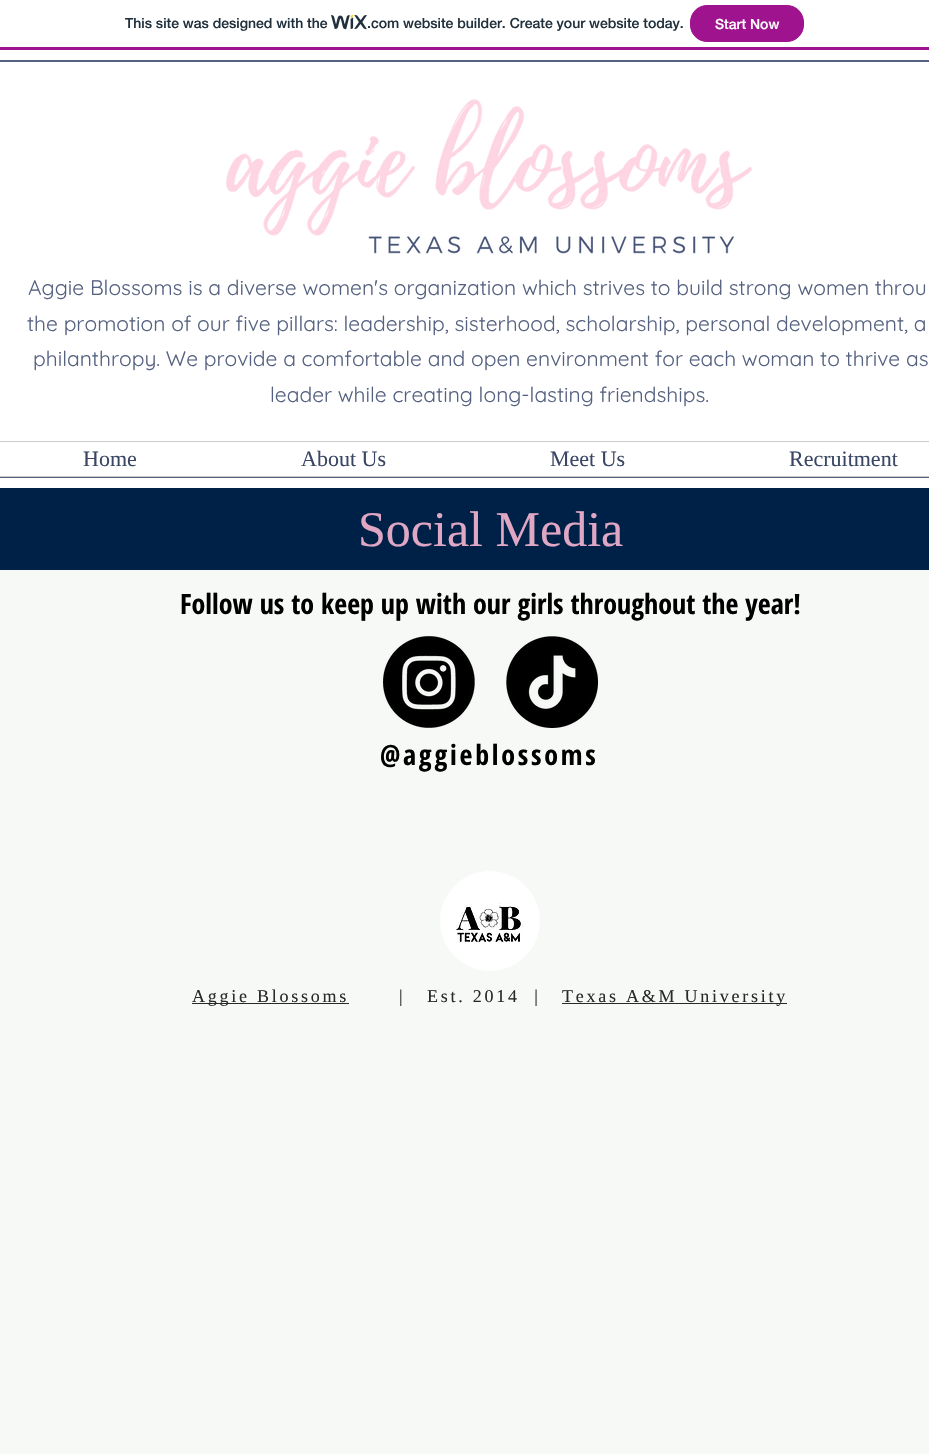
#include "include/core/SkBlurTypes.h"
#include "include/core/SkCanvas.h"
#include "include/core/SkData.h"
#include "include/core/SkFont.h"
#include "include/core/SkFontMgr.h"
#include "include/core/SkImage.h"
#include "include/core/SkMaskFilter.h"
#include "include/core/SkPaint.h"
#include "include/core/SkPathBuilder.h"
#include "include/core/SkTextBlob.h"
#include "include/effects/SkDashPathEffect.h"
#include "include/effects/SkGradientShader.h"
#include "include/utils/SkParsePath.h"

extern sk_sp<SkFontMgr> fontMgr;

void draw(SkCanvas* canvas) {
    SkPaint p;
    p.setAntiAlias(true);
    auto font = [&](const char* family, int weight, float size, bool italic = false) {
        SkFontStyle style(weight, SkFontStyle::kNormal_Width,
            italic ? SkFontStyle::kItalic_Slant : SkFontStyle::kUpright_Slant);
        SkFont result(fontMgr->matchFamilyStyle(family, style), size);
        result.setSubpixel(true);
        return result;
    };
    auto drawTracked = [&](const char* s, float x, float y, const SkFont& font, const SkPaint& ink, float letter, float word) {
        std::vector<SkGlyphID> glyphs(font.countText(s, strlen(s), SkTextEncoding::kUTF8));
        std::vector<float> xs(glyphs.size());
        font.textToGlyphs(s, strlen(s), SkTextEncoding::kUTF8, glyphs);
        font.getXPos(glyphs, xs, x);
        float extra = 0;
        for (size_t i = 0; i < glyphs.size(); i++) {
            xs[i] += extra;
            extra += letter + word * (glyphs[i] == font.unicharToGlyph(' '));
        }
        canvas->drawTextBlob(SkTextBlob::MakeFromPosHGlyphs(glyphs, xs, y, font), 0, 0, ink);
    };
    auto drawPhoto = [&](const char* path, float l, float t, float r, float b) {
        auto image = SkImages::DeferredFromEncodedData(SkData::MakeFromFileName(path));
        canvas->drawImageRect(image, SkRect::MakeLTRB(l, t, r, b), SkSamplingOptions());
    };
    canvas->clear(0xFFFFFFFF);
    p.setColor(0xFFA0138E);
    canvas->drawRect(SkRect::MakeLTRB(0, 47, 929, 50), p);
    auto font1 = font("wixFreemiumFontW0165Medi", 500, 14);
    p.setColor(0xFF20303C);
    canvas->drawString("This site was designed with the", 125, 28, font1, p);
    drawPhoto("media/1.png", 331, 15, 367, 30);
    canvas->drawString(".com website builder. Create your website today.", 367, 28, font1, p);
    p.setColor(0xFFA0138E);
    canvas->drawRoundRect(SkRect::MakeLTRB(690.5f, 5.5f, 803.5f, 41.5f), 16.5f, 16.5f, p);
    p.setStyle(SkPaint::kStroke_Style);
    p.setStrokeWidth(1);
    canvas->drawRoundRect(SkRect::MakeLTRB(690.5f, 5.5f, 803.5f, 41.5f), 16.5f, 16.5f, p);
    p.setStyle(SkPaint::kFill_Style);
    p.setColor(0xFFFFFFFF);
    canvas->drawString("Start Now", 715, 29, font1, p);
    p.setColor(0xFF556180);
    canvas->drawRect(SkRect::MakeLTRB(0, 60, 929, 62), p);
    canvas->drawRect(SkRect::MakeLTRB(0, 477, 929, 478), p);
    drawPhoto("media/2.png", 226, 99, 752, 255);
    auto font2 = font("Quicksand", 400, 21);
    {
        const struct { const char* s; float x, y; } items[] = {
            {"Aggie Blossoms is a diverse women's organization which strives to build strong women throu", 28, 295},
            {"the promotion of our five pillars: leadership, sisterhood, scholarship, personal development, a", 27, 331},
            {"philanthropy. We provide a comfortable and open environment for each woman to thrive as", 33, 366},
            {"leader while creating long-lasting friendships.", 270, 402},
        };
        for (auto [s, x, y] : items) {
            canvas->drawString(s, x, y, font2, p);
        }
    }
    p.setColor(0xFFCACACA);
    canvas->drawRect(SkRect::MakeLTRB(0, 441, 929, 442), p);
    canvas->drawRect(SkRect::MakeLTRB(0, 476, 929, 477), p);
    auto font3 = font("Liberation Serif", 400, 22);
    p.setColor(0xFF3A4664);
    {
        const struct { const char* s; float x, y; } items[] = {
            {"Home", 83, 466},
            {"About Us", 301, 466},
            {"Meet Us", 550, 466},
            {"Recruitment", 789, 466},
        };
        for (auto [s, x, y] : items) {
            canvas->drawString(s, x, y, font3, p);
        }
    }
    p.setColor(0xFF002147);
    canvas->drawRect(SkRect::MakeLTRB(0, 488, 929, 570), p);
    auto font4 = font("Liberation Serif", 400, 50);
    p.setColor(0xFFE0A7C5);
    canvas->drawString("Social Media", 358, 546, font4, p);
    p.setColor(0xFFF6F9F5);
    canvas->drawRect(SkRect::MakeLTRB(0, 570, 929, 1454), p);
    auto font5 = font("Open Sans Condensed", 700, 28);
    p.setColor(0xFF000000);
    canvas->drawString("Follow us to keep up with our girls throughout the year!", 180, 614, font5, p);
    drawPhoto("media/3.png", 383, 636, 475, 728);
    drawPhoto("media/4.png", 506, 636, 598, 728);
    drawTracked("@aggieblossoms", 380, 765, font5, p, 2.75f, 0);
    p.setColor(0xFFFFFFFF);
    canvas->drawCircle(490, 921, 50, p);
    drawPhoto("media/5.png", 456, 903, 524, 943);
    p.setColor(0xFF292929);
    canvas->drawRect(SkRect::MakeLTRB(192, 1003, 349, 1004), p);
    auto font6 = font("Liberation Serif", 400, 18);
    drawTracked("Aggie Blossoms", 192, 1002, font6, p, 2.75f, 0);
    drawTracked("|   Est. 2014  |", 399, 1002, font6, p, 2.75f, 0);
    canvas->drawRect(SkRect::MakeLTRB(562, 1003, 787, 1004), p);
    drawTracked("Texas A&M University", 562, 1002, font6, p, 2.75f, 0);
}
